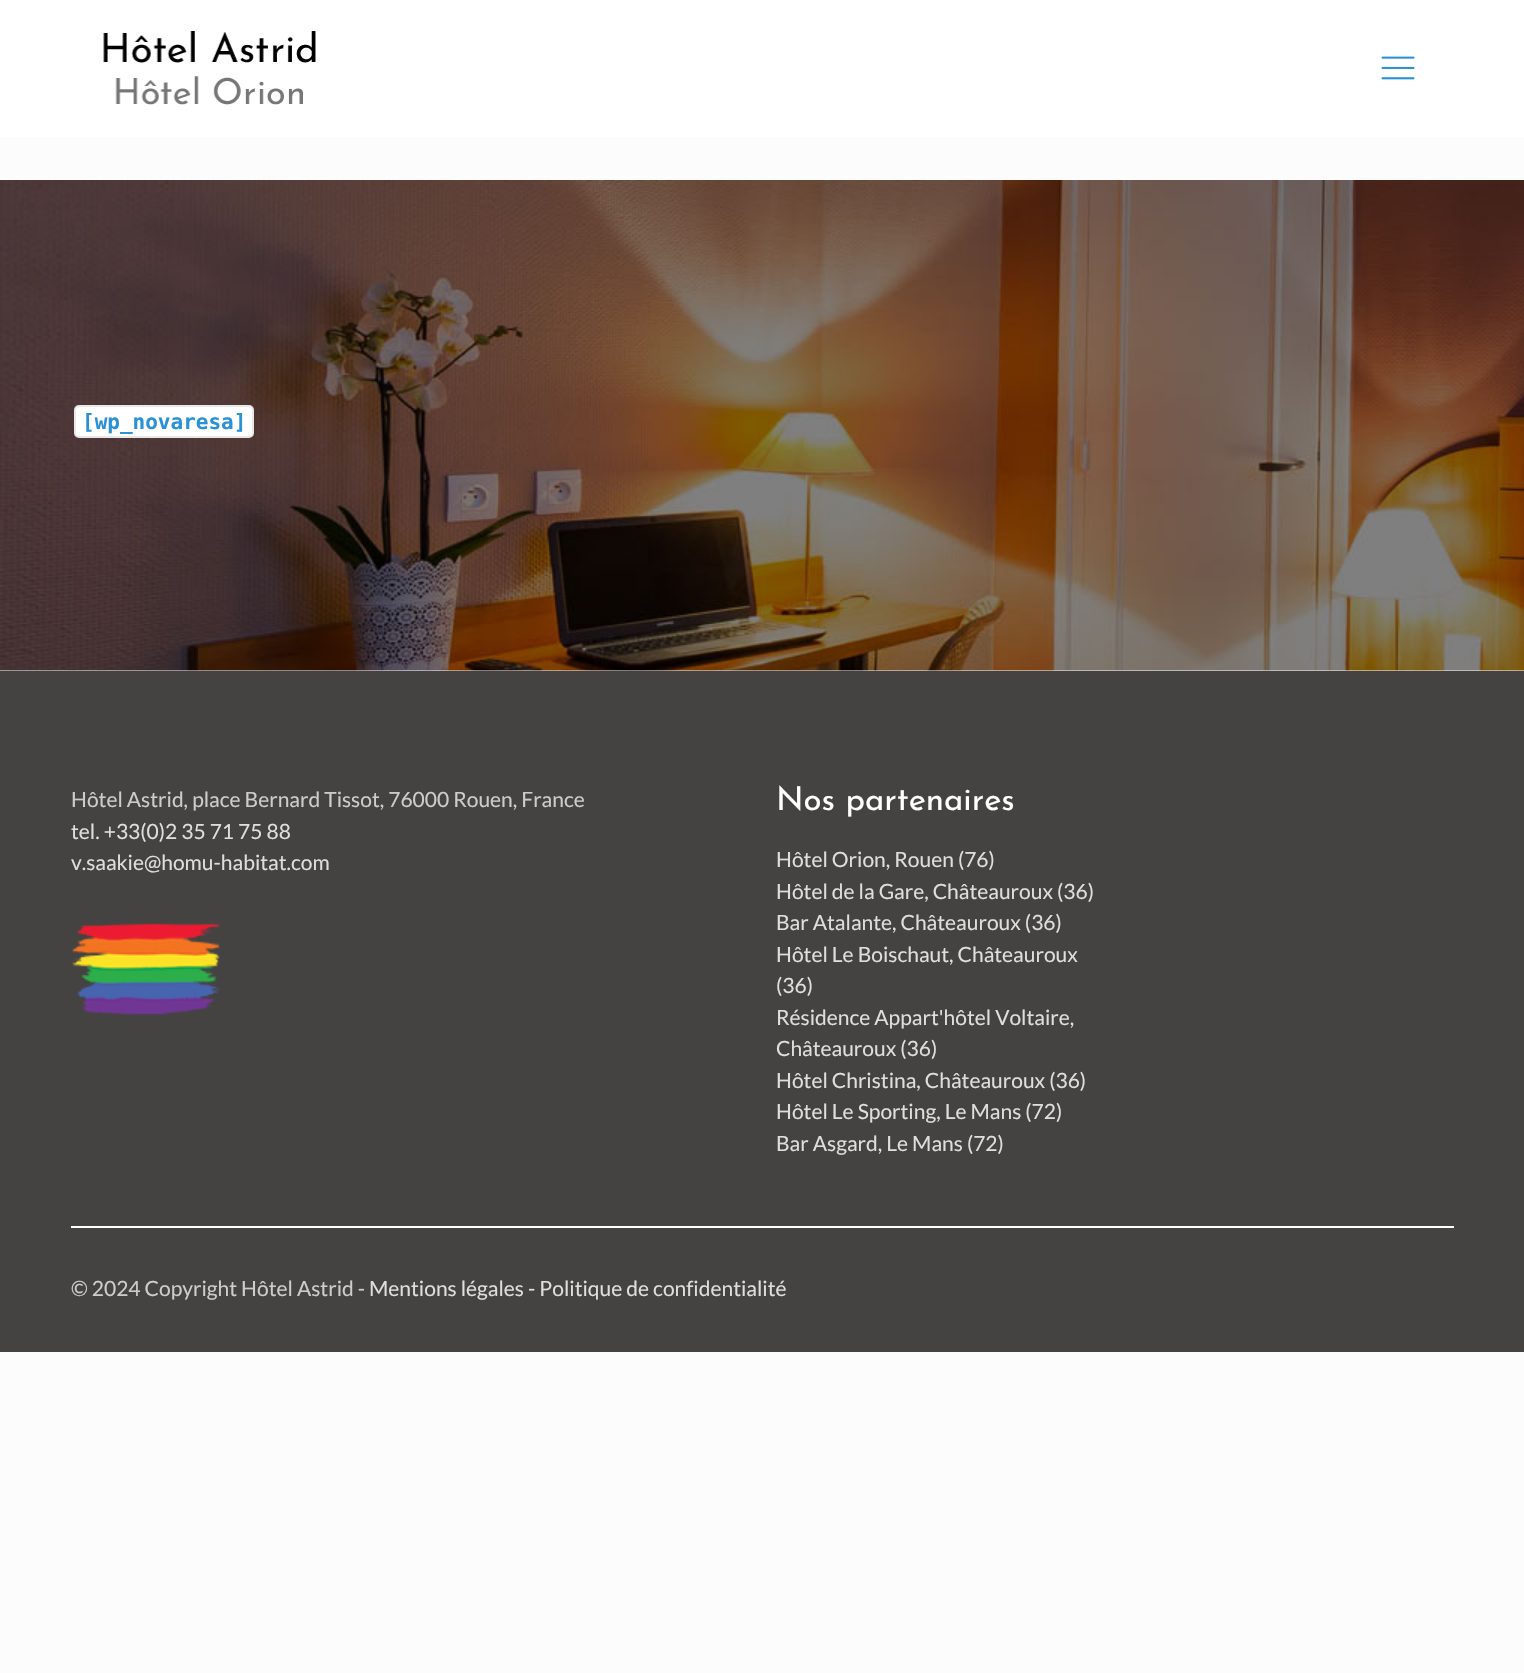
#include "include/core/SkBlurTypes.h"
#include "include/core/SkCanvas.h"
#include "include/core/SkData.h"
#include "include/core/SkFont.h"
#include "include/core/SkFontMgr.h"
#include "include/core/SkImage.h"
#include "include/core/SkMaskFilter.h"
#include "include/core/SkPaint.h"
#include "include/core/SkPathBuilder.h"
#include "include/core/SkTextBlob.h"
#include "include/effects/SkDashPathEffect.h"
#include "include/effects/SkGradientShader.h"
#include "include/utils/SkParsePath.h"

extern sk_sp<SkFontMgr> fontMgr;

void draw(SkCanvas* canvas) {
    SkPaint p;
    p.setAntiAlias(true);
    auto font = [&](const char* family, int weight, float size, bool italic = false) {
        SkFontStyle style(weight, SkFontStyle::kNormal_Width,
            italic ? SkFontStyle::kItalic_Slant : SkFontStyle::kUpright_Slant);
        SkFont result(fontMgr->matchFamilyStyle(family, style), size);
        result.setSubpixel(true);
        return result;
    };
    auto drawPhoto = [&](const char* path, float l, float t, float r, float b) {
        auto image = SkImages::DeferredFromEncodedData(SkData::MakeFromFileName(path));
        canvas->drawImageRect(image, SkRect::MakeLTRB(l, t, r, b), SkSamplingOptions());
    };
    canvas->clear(0xFFFCFCFC);
    p.setColor(0xFFFFFFFF);
    canvas->drawRect(SkRect::MakeLTRB(0, 0, 1524, 137), p);
    drawPhoto("media/1.png", 103, 31, 316, 105);
    drawPhoto("media/2.png", 1381, 56, 1415, 80);
    drawPhoto("media/3.png", 0, 180, 1524, 671);
    canvas->drawRoundRect(SkRect::MakeLTRB(75, 406, 253, 437), 4, 4, p);
    p.setStyle(SkPaint::kStroke_Style);
    p.setStrokeWidth(2);
    p.setColor(0xFFE8E8E8);
    canvas->drawRoundRect(SkRect::MakeLTRB(75, 406, 253, 437), 4, 4, p);
    auto font1 = font("DejaVu Sans Mono", 700, 21);
    p.setStyle(SkPaint::kFill_Style);
    p.setColor(0xFF2991D6);
    canvas->drawString("[wp_novaresa]", 82, 429, font1, p);
    p.setColor(0xFF444342);
    canvas->drawRect(SkRect::MakeLTRB(0, 671, 1524, 1352), p);
    auto font2 = font("Lato", 400, 21);
    p.setColor(0xFFCCCCCC);
    canvas->drawString("Hôtel Astrid, place Bernard Tissot, 76000 Rouen, France", 71, 807, font2, p);
    p.setColor(0xFFDEDEDE);
    canvas->drawString("tel. +33(0)2 35 71 75 88", 71, 839, font2, p);
    canvas->drawString("v.saakie@homu-habitat.com", 71, 870, font2, p);
    drawPhoto("media/4.png", 71, 923, 220, 1015);
    auto font3 = font("Josefin Sans", 400, 33);
    p.setColor(0xFFFFFFFF);
    canvas->drawString("Nos partenaires", 776, 810, font3, p);
    p.setColor(0xFFDEDEDE);
    {
        const struct { const char* s; float x, y; } items[] = {
            {"Hôtel Orion, Rouen (76)", 776, 867},
            {"Hôtel de la Gare, Châteauroux (36)", 776, 899},
            {"Bar Atalante, Châteauroux (36)", 776, 930},
            {"Hôtel Le Boischaut, Châteauroux", 776, 962},
            {"(36)", 776, 993},
            {"Résidence Appart'hôtel Voltaire,", 776, 1025},
            {"Châteauroux (36)", 776, 1056},
            {"Hôtel Christina, Châteauroux (36)", 776, 1088},
            {"Hôtel Le Sporting, Le Mans (72)", 776, 1119},
            {"Bar Asgard, Le Mans (72)", 776, 1151},
        };
        for (auto [s, x, y] : items) {
            canvas->drawString(s, x, y, font2, p);
        }
    }
    p.setColor(0xFFFFFFFF);
    canvas->drawRect(SkRect::MakeLTRB(71, 1226, 1454, 1228), p);
    p.setColor(0xFFCCCCCC);
    canvas->drawString("© 2024 Copyright Hôtel Astrid -", 71, 1296, font2, p);
    p.setColor(0xFFDEDEDE);
    canvas->drawString("Mentions légales - Politique de confidentialité", 369, 1296, font2, p);
}
